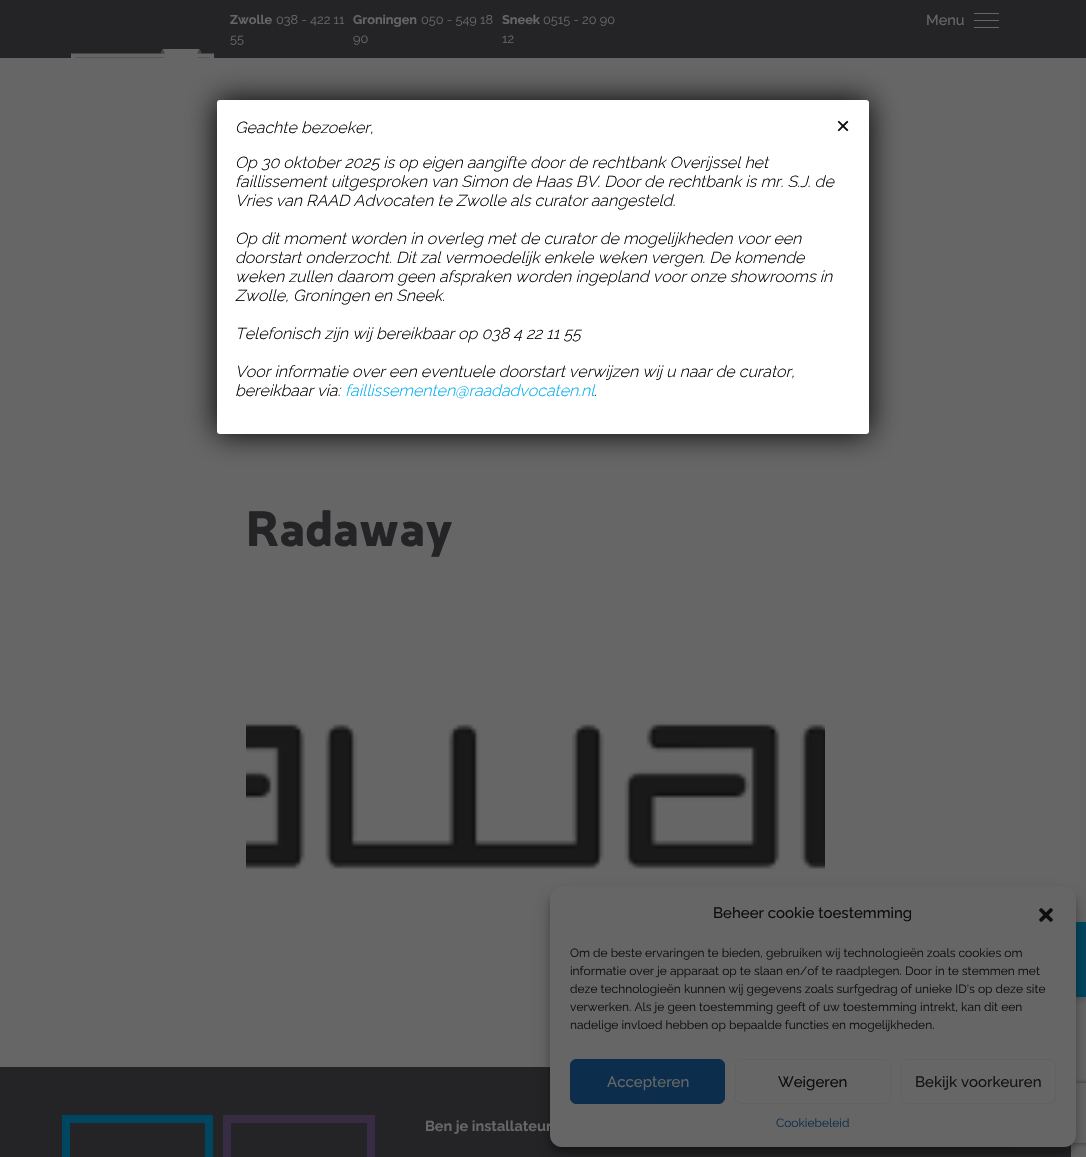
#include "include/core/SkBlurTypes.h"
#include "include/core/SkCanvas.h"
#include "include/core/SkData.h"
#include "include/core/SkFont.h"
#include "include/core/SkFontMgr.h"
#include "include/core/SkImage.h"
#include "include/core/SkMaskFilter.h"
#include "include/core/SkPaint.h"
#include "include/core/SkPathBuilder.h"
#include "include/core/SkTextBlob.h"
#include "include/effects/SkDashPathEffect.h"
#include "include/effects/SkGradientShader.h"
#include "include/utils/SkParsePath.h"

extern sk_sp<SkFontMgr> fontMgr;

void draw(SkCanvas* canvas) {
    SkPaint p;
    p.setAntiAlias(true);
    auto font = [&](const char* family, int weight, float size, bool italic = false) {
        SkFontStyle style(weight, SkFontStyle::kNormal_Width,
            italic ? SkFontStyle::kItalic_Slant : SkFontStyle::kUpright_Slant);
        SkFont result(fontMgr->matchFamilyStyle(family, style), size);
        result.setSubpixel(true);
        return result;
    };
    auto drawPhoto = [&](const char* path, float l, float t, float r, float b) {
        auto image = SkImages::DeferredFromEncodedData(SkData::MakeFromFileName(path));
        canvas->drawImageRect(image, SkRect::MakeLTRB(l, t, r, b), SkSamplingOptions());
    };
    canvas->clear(0xFF666666);
    p.setColor(0xFF242426);
    canvas->drawRect(SkRect::MakeLTRB(0, 0, 1086, 58), p);
    auto font1 = font("Raleway", 700, 12.75f);
    p.setColor(0xFF666666);
    canvas->drawString("Zwolle", 230, 24, font1, p);
    auto font2 = font("Raleway", 400, 12.75f);
    canvas->drawString("038 - 422 11", 276, 24, font2, p);
    canvas->drawString("55", 230, 43, font2, p);
    canvas->drawString("Groningen", 353, 24, font1, p);
    canvas->drawString("050 - 549 18", 421, 24, font2, p);
    canvas->drawString("90", 353, 43, font2, p);
    canvas->drawString("Sneek", 502, 24, font1, p);
    canvas->drawString("0515 - 20 90", 543, 24, font2, p);
    canvas->drawString("12", 502, 43, font2, p);
    canvas->drawRect(SkRect::MakeLTRB(974, 13, 999, 14), p);
    auto font3 = font("Raleway", 500, 14.5f);
    canvas->drawString("Menu", 926, 25, font3, p);
    canvas->drawRect(SkRect::MakeLTRB(974, 20, 999, 21), p);
    canvas->drawRect(SkRect::MakeLTRB(974, 27, 999, 28), p);
    drawPhoto("media/1.png", 71, 49, 215, 58);
    p.setColor(0xFF020202);
    p.setMaskFilter(SkMaskFilter::MakeBlur(kNormal_SkBlurStyle, 15));
    canvas->drawRoundRect(SkRect::MakeLTRB(217, 100, 869, 434), 3, 3, p);
    p.setMaskFilter(nullptr);
    p.setColor(0xFFFFFFFF);
    canvas->drawRoundRect(SkRect::MakeLTRB(217, 100, 869, 434), 3, 3, p);
    auto font4 = font("Raleway", 300, 16, true);
    p.setColor(0xFF000000);
    {
        const struct { const char* s; float x, y; } items[] = {
            {"Geachte bezoeker,", 235, 133},
            {"Op 30 oktober 2025 is op eigen aangifte door de rechtbank Overijssel het", 235, 168},
            {"faillissement uitgesproken van Simon de Haas BV. Door de rechtbank is mr. S.J. de", 235, 187},
            {"Vries van RAAD Advocaten te Zwolle als curator aangesteld.", 235, 206},
            {"Op dit moment worden in overleg met de curator de mogelijkheden voor een", 235, 244},
            {"doorstart onderzocht. Dit zal vermoedelijk enkele weken vergen. De komende", 235, 263},
            {"weken zullen daarom geen afspraken worden ingepland voor onze showrooms in", 235, 282},
            {"Zwolle, Groningen en Sneek.", 235, 301},
            {"Telefonisch zijn wij bereikbaar op 038 4 22 11 55", 235, 339},
            {"Voor informatie over een eventuele doorstart verwijzen wij u naar de curator,", 235, 377},
            {"bereikbaar via:", 235, 396},
        };
        for (auto [s, x, y] : items) {
            canvas->drawString(s, x, y, font4, p);
        }
    }
    p.setColor(0xFF00AEEF);
    canvas->drawString("faillissementen@raadadvocaten.nl", 345, 396, font4, p);
    p.setColor(0xFF000000);
    canvas->drawString(".", 594, 396, font4, p);
    auto font5 = font("Liberation Sans", 400, 24);
    p.setColor(0xFF0E0E0E);
    canvas->drawString("×", 836, 134, font5, p);
    auto font6 = font("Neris", 900, 49);
    p.setColor(0xFF242426);
    canvas->drawString("Radaway", 246, 546, font6, p);
    drawPhoto("media/2.png", 246, 721, 825, 869);
    p.setColor(0x29000000);
    p.setMaskFilter(SkMaskFilter::MakeBlur(kNormal_SkBlurStyle, 3));
    canvas->drawRect(SkRect::MakeLTRB(1011, 925, 1086, 1000), p);
    p.setMaskFilter(nullptr);
    p.setColor(0xFF004660);
    canvas->drawRect(SkRect::MakeLTRB(1076, 922, 1086, 997), p);
    p.setColor(0xFF242426);
    canvas->drawRect(SkRect::MakeLTRB(0, 1067, 1071, 1157), p);
    p.setColor(0x3B000000);
    p.setMaskFilter(SkMaskFilter::MakeBlur(kNormal_SkBlurStyle, 3));
    canvas->drawRoundRect(SkRect::MakeLTRB(550, 893, 1076, 1153), 12, 12, p);
    p.setMaskFilter(nullptr);
    p.setColor(0x30000000);
    p.setMaskFilter(SkMaskFilter::MakeBlur(kNormal_SkBlurStyle, 10));
    canvas->drawRoundRect(SkRect::MakeLTRB(550, 897, 1076, 1157), 12, 12, p);
    p.setMaskFilter(nullptr);
    canvas->save();
    canvas->clipPath(SkPathBuilder(SkPathFillType::kEvenOdd).moveTo(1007, 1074).lineTo(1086, 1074).lineTo(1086, 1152).lineTo(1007, 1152).close().moveTo(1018, 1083).lineTo(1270, 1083).cubicTo(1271, 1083, 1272, 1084, 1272, 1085).lineTo(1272, 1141).cubicTo(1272, 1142, 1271, 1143, 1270, 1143).lineTo(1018, 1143).cubicTo(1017, 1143, 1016, 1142, 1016, 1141).lineTo(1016, 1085).cubicTo(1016, 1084, 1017, 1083, 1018, 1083).close().detach(), true);
    p.setColor(0xFF333333);
    p.setMaskFilter(SkMaskFilter::MakeBlur(kNormal_SkBlurStyle, 2.5f));
    canvas->drawRoundRect(SkRect::MakeLTRB(1016, 1083, 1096, 1143), 2, 2, p);
    p.setMaskFilter(nullptr);
    canvas->restore();
    p.setColor(0xFF666666);
    canvas->drawRoundRect(SkRect::MakeLTRB(550, 887, 1076, 1147), 12, 12, p);
    auto font7 = font("Raleway", 500, 15);
    p.setColor(0xFF0E0E0E);
    canvas->drawString("Beheer cookie toestemming", 713, 918, font7, p);
    drawPhoto("media/3.png", 1039, 908, 1053, 922);
    auto font8 = font("Raleway", 400, 12);
    {
        const struct { const char* s; float x, y; } items[] = {
            {"Om de beste ervaringen te bieden, gebruiken wij technologieën zoals cookies om", 570, 957},
            {"informatie over je apparaat op te slaan en/of te raadplegen. Door in te stemmen met", 570, 975},
            {"deze technologieën kunnen wij gegevens zoals surfgedrag of unieke ID's op deze site", 570, 993},
            {"verwerken. Als je geen toestemming geeft of uw toestemming intrekt, kan dit een", 570, 1011},
            {"nadelige invloed hebben op bepaalde functies en mogelijkheden.", 570, 1029},
        };
        for (auto [s, x, y] : items) {
            canvas->drawString(s, x, y, font8, p);
        }
    }
    p.setColor(0xFF0C2E4C);
    canvas->drawRoundRect(SkRect::MakeLTRB(570.5f, 1059.5f, 724.5f, 1103.5f), 5.5f, 5.5f, p);
    p.setStyle(SkPaint::kStroke_Style);
    p.setStrokeWidth(1);
    canvas->drawRoundRect(SkRect::MakeLTRB(570.5f, 1059.5f, 724.5f, 1103.5f), 5.5f, 5.5f, p);
    p.setStyle(SkPaint::kFill_Style);
    p.setColor(0xFF666666);
    canvas->drawString("Accepteren", 607, 1087, font7, p);
    p.setStyle(SkPaint::kStroke_Style);
    p.setColor(0xFF616161);
    canvas->drawRoundRect(SkRect::MakeLTRB(735.5f, 1059.5f, 890.5f, 1103.5f), 5.5f, 5.5f, p);
    p.setStyle(SkPaint::kFill_Style);
    p.setColor(0xFF0E0E0E);
    canvas->drawString("Weigeren", 778, 1087, font7, p);
    p.setStyle(SkPaint::kStroke_Style);
    p.setColor(0xFF616161);
    canvas->drawRoundRect(SkRect::MakeLTRB(901.5f, 1059.5f, 1055.5f, 1103.5f), 5.5f, 5.5f, p);
    p.setStyle(SkPaint::kFill_Style);
    p.setColor(0xFF141414);
    canvas->drawString("Bekijk voorkeuren", 915, 1087, font7, p);
    p.setColor(0xFF0C2E4C);
    canvas->drawString("Cookiebeleid", 776, 1127, font8, p);
    p.setStyle(SkPaint::kStroke_Style);
    p.setStrokeWidth(8);
    p.setColor(0xFF004660);
    canvas->drawRect(SkRect::MakeLTRB(66, 1119, 209, 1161), p);
    p.setColor(0xFF382C45);
    canvas->drawRect(SkRect::MakeLTRB(227, 1119, 371, 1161), p);
    auto font9 = font("Raleway", 700, 14.5f);
    p.setStyle(SkPaint::kFill_Style);
    p.setColor(0xFF666666);
    canvas->drawString("Ben je installateur", 425, 1131, font9, p);
}
